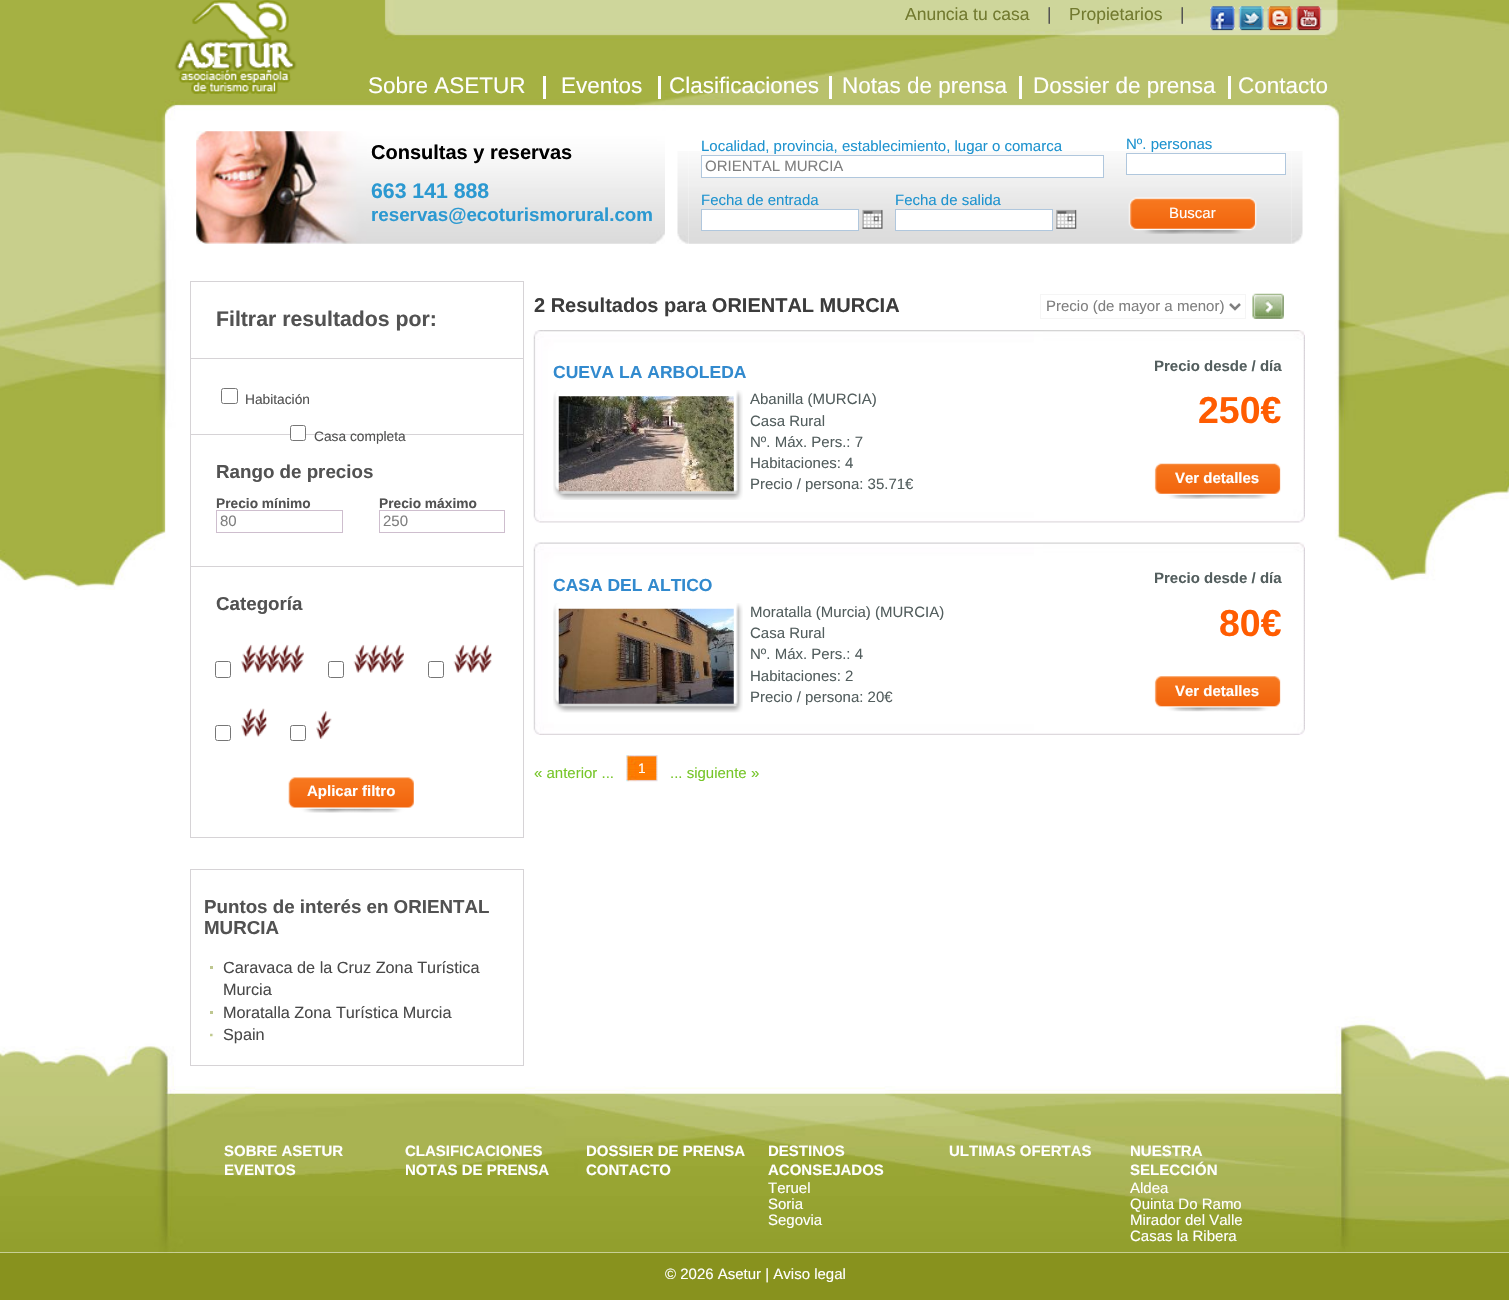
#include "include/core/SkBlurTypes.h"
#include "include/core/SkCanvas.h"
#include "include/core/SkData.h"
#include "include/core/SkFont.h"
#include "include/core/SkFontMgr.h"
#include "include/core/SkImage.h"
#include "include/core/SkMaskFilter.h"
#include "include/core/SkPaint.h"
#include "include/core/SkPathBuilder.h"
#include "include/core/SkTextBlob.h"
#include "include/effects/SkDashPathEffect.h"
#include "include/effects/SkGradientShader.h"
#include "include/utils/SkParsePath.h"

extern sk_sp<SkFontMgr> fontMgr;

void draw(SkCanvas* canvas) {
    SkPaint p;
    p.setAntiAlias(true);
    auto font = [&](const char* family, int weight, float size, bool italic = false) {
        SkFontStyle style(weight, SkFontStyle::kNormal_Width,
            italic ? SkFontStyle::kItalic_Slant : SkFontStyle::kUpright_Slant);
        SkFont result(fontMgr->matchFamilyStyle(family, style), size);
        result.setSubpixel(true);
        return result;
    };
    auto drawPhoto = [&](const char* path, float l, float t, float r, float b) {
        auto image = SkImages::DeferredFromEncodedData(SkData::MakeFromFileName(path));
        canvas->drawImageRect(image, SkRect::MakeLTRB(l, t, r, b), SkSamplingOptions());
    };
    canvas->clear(0xFFFFFFFF);
    drawPhoto("media/1.png", 0, 0, 1509, 590);
    drawPhoto("media/2.png", 174, 0, 297, 94);
    auto font1 = font("Liberation Sans", 400, 17.5f);
    p.setColor(0xFF727A2F);
    canvas->drawString("Anuncia tu casa", 905, 20, font1, p);
    p.setColor(0xFF525252);
    canvas->drawString("|", 1047, 20, font1, p);
    p.setColor(0xFF727A2F);
    canvas->drawString("Propietarios", 1069, 20, font1, p);
    p.setColor(0xFF525252);
    canvas->drawString("|", 1180, 20, font1, p);
    drawPhoto("media/3.png", 1210, 6, 1235, 31);
    drawPhoto("media/4.png", 1238, 6, 1264, 31);
    canvas->drawRect(SkRect::MakeLTRB(1249, 24, 1254, 25), p);
    drawPhoto("media/5.png", 1267, 6, 1293, 31);
    canvas->drawRect(SkRect::MakeLTRB(1278, 24, 1283, 25), p);
    drawPhoto("media/6.png", 1296, 6, 1322, 31);
    canvas->drawRect(SkRect::MakeLTRB(1306, 24, 1311, 25), p);
    p.setColor(0xFFFFFFFF);
    canvas->drawRect(SkRect::MakeLTRB(543, 76, 546, 99), p);
    auto font2 = font("Liberation Sans", 400, 22.5f);
    canvas->drawString("Sobre ASETUR", 368, 93, font2, p);
    canvas->drawRect(SkRect::MakeLTRB(658, 76, 661, 99), p);
    canvas->drawString("Eventos", 561, 93, font2, p);
    canvas->drawRect(SkRect::MakeLTRB(829, 76, 832, 99), p);
    canvas->drawString("Clasificaciones", 669, 93, font2, p);
    canvas->drawRect(SkRect::MakeLTRB(1019, 76, 1022, 99), p);
    canvas->drawString("Notas de prensa", 842, 93, font2, p);
    canvas->drawRect(SkRect::MakeLTRB(1228, 76, 1231, 99), p);
    canvas->drawString("Dossier de prensa", 1033, 93, font2, p);
    canvas->drawString("Contacto", 1238, 93, font2, p);
    drawPhoto("media/7.png", 196, 131, 665, 244);
    auto font3 = font("Liberation Sans", 700, 20);
    p.setColor(0xFF000000);
    canvas->drawString("Consultas y reservas", 371, 159, font3, p);
    auto font4 = font("Liberation Sans", 700, 21.25f);
    p.setColor(0xFF2C99D1);
    canvas->drawString("663 141 888", 371, 198, font4, p);
    auto font5 = font("Liberation Sans", 700, 18.75f);
    canvas->drawString("reservas@ecoturismorural.com", 371, 221, font5, p);
    drawPhoto("media/8.png", 677, 151, 689, 244);
    drawPhoto("media/9.png", 689, 151, 1292, 244);
    auto font6 = font("Liberation Sans", 400, 15);
    p.setColor(0xFF1E93CF);
    canvas->drawString("Localidad, provincia, establecimiento, lugar o comarca", 701, 151, font6, p);
    p.setColor(0xFFFFFFFF);
    canvas->drawRect(SkRect::MakeLTRB(701.5f, 155.5f, 1103.5f, 177.5f), p);
    p.setStyle(SkPaint::kStroke_Style);
    p.setStrokeWidth(1);
    p.setColor(0xFFB0C7DD);
    canvas->drawRect(SkRect::MakeLTRB(701.5f, 155.5f, 1103.5f, 177.5f), p);
    p.setStyle(SkPaint::kFill_Style);
    p.setColor(0xFF7F7F7F);
    canvas->drawString("ORIENTAL MURCIA", 705, 171, font6, p);
    p.setColor(0xFF1E93CF);
    canvas->drawString("Nº. personas", 1126, 149, font6, p);
    p.setColor(0xFFFFFFFF);
    canvas->drawRect(SkRect::MakeLTRB(1126.5f, 153.5f, 1285.5f, 174.5f), p);
    p.setStyle(SkPaint::kStroke_Style);
    p.setColor(0xFFB0C7DD);
    canvas->drawRect(SkRect::MakeLTRB(1126.5f, 153.5f, 1285.5f, 174.5f), p);
    p.setStyle(SkPaint::kFill_Style);
    p.setColor(0xFF1E93CF);
    canvas->drawString("Fecha de entrada", 701, 205, font6, p);
    p.setColor(0xFFFFFFFF);
    canvas->drawRect(SkRect::MakeLTRB(701.5f, 209.5f, 858.5f, 230.5f), p);
    p.setStyle(SkPaint::kStroke_Style);
    p.setColor(0xFFB0C7DD);
    canvas->drawRect(SkRect::MakeLTRB(701.5f, 209.5f, 858.5f, 230.5f), p);
    drawPhoto("media/10.png", 862, 209, 883, 229);
    p.setStyle(SkPaint::kFill_Style);
    p.setColor(0xFF1E93CF);
    canvas->drawString("Fecha de salida", 895, 205, font6, p);
    p.setColor(0xFFFFFFFF);
    canvas->drawRect(SkRect::MakeLTRB(895.5f, 209.5f, 1052.5f, 230.5f), p);
    p.setStyle(SkPaint::kStroke_Style);
    p.setColor(0xFFB0C7DD);
    canvas->drawRect(SkRect::MakeLTRB(895.5f, 209.5f, 1052.5f, 230.5f), p);
    drawPhoto("media/11.png", 1056, 209, 1077, 229);
    drawPhoto("media/12.png", 1128, 197, 1257, 234);
    p.setStyle(SkPaint::kFill_Style);
    p.setColor(0xFFFFFFFF);
    canvas->drawString("Buscar", 1169, 218, font6, p);
    drawPhoto("media/13.png", 1291, 151, 1303, 244);
    p.setStyle(SkPaint::kStroke_Style);
    p.setColor(0xFFD6D3D6);
    canvas->drawRect(SkRect::MakeLTRB(190.5f, 281.5f, 523.5f, 837.5f), p);
    p.setStyle(SkPaint::kFill_Style);
    p.setColor(0xFF525252);
    canvas->drawString("Filtrar resultados por:", 216, 326, font4, p);
    p.setColor(0xFFD6D3D6);
    canvas->drawRect(SkRect::MakeLTRB(191, 358, 523, 359), p);
    p.setStyle(SkPaint::kStroke_Style);
    p.setColor(0xFF767676);
    canvas->drawRoundRect(SkRect::MakeLTRB(221.5f, 388.5f, 237.5f, 403.5f), 2, 2, p);
    auto font7 = font("Liberation Sans", 400, 13.75f);
    p.setStyle(SkPaint::kFill_Style);
    p.setColor(0xFF525252);
    canvas->drawString("Habitación", 245, 404, font7, p);
    p.setColor(0xFFD6D3D6);
    canvas->drawRect(SkRect::MakeLTRB(191, 434, 523, 435), p);
    p.setColor(0xFFFFFFFF);
    canvas->drawRoundRect(SkRect::MakeLTRB(290.5f, 425.5f, 305.5f, 440.5f), 2, 2, p);
    p.setStyle(SkPaint::kStroke_Style);
    p.setColor(0xFF767676);
    canvas->drawRoundRect(SkRect::MakeLTRB(290.5f, 425.5f, 305.5f, 440.5f), 2, 2, p);
    p.setStyle(SkPaint::kFill_Style);
    p.setColor(0xFF525252);
    canvas->drawString("Casa completa", 314, 441, font7, p);
    canvas->drawString("Rango de precios", 216, 478, font5, p);
    auto font8 = font("Liberation Sans", 700, 13.75f);
    canvas->drawString("Precio mínimo", 216, 508, font8, p);
    p.setStyle(SkPaint::kStroke_Style);
    p.setColor(0xFFCEBECE);
    canvas->drawRect(SkRect::MakeLTRB(216.5f, 510.5f, 342.5f, 532.5f), p);
    p.setStyle(SkPaint::kFill_Style);
    p.setColor(0xFF7F7F7F);
    canvas->drawString("80", 220, 526, font6, p);
    p.setColor(0xFF525252);
    canvas->drawString("Precio máximo", 379, 508, font8, p);
    p.setStyle(SkPaint::kStroke_Style);
    p.setColor(0xFFCEBECE);
    canvas->drawRect(SkRect::MakeLTRB(379.5f, 510.5f, 504.5f, 532.5f), p);
    p.setStyle(SkPaint::kFill_Style);
    p.setColor(0xFF7F7F7F);
    canvas->drawString("250", 383, 526, font6, p);
    p.setColor(0xFFD6D3D6);
    canvas->drawRect(SkRect::MakeLTRB(191, 566, 523, 567), p);
    p.setColor(0xFF525252);
    canvas->drawString("Categoría", 216, 610, font5, p);
    drawPhoto("media/14.png", 241, 644, 304, 673);
    p.setStyle(SkPaint::kStroke_Style);
    p.setColor(0xFF767676);
    canvas->drawRoundRect(SkRect::MakeLTRB(215.5f, 661.5f, 230.5f, 677.5f), 2, 2, p);
    drawPhoto("media/15.png", 353, 644, 404, 673);
    canvas->drawRoundRect(SkRect::MakeLTRB(328.5f, 661.5f, 343.5f, 677.5f), 2, 2, p);
    drawPhoto("media/16.png", 453, 644, 492, 673);
    canvas->drawRoundRect(SkRect::MakeLTRB(428.5f, 661.5f, 443.5f, 677.5f), 2, 2, p);
    drawPhoto("media/17.png", 241, 708, 267, 737);
    canvas->drawRoundRect(SkRect::MakeLTRB(215.5f, 725.5f, 230.5f, 740.5f), 2, 2, p);
    drawPhoto("media/18.png", 316, 711, 332, 739);
    canvas->drawRoundRect(SkRect::MakeLTRB(290.5f, 725.5f, 305.5f, 740.5f), 2, 2, p);
    drawPhoto("media/19.png", 288, 777, 414, 813);
    auto font9 = font("Liberation Sans", 700, 15);
    p.setStyle(SkPaint::kFill_Style);
    p.setColor(0xFFFFFFFF);
    canvas->drawString("Aplicar filtro", 307, 796, font9, p);
    drawPhoto("media/31.png", 0, 1016, 1509, 1253);
    p.setStyle(SkPaint::kStroke_Style);
    p.setColor(0xFFD6D3D6);
    canvas->drawRect(SkRect::MakeLTRB(190.5f, 869.5f, 523.5f, 1065.5f), p);
    p.setStyle(SkPaint::kFill_Style);
    p.setColor(0xFF525252);
    canvas->drawString("Puntos de interés en ORIENTAL", 204, 913, font5, p);
    canvas->drawString("MURCIA", 204, 934, font5, p);
    p.setColor(0xFFBEC790);
    canvas->drawRect(SkRect::MakeLTRB(210, 966, 213, 969), p);
    auto font10 = font("Liberation Sans", 400, 16.25f);
    p.setColor(0xFF494949);
    canvas->drawString("Caravaca de la Cruz Zona Turística", 223, 973, font10, p);
    canvas->drawString("Murcia", 223, 995, font10, p);
    p.setColor(0xFFBEC790);
    canvas->drawRect(SkRect::MakeLTRB(210, 1011, 213, 1014), p);
    p.setColor(0xFF494949);
    canvas->drawString("Moratalla Zona Turística Murcia", 223, 1018, font10, p);
    drawPhoto("media/20.png", 210, 1033, 214, 1037);
    canvas->drawString("Spain", 223, 1040, font10, p);
    p.setColor(0xFF3C3C3C);
    canvas->drawString("2 Resultados para ORIENTAL MURCIA", 534, 312, font3, p);
    p.setStyle(SkPaint::kStroke_Style);
    p.setColor(0xFFF5F5F5);
    canvas->drawRect(SkRect::MakeLTRB(1040.5f, 294.5f, 1245.5f, 318.5f), p);
    p.setStrokeWidth(2.5f);
    p.setColor(0xFF7F7F7F);
    canvas->drawPath(SkPathBuilder().moveTo(1230, 304).lineTo(1235, 309).lineTo(1240, 304).detach(), p);
    p.setStyle(SkPaint::kFill_Style);
    canvas->drawString("Precio (de mayor a menor)", 1046, 311, font6, p);
    drawPhoto("media/21.png", 1252, 293, 1284, 319);
    drawPhoto("media/22.png", 533, 330, 1305, 523);
    auto font11 = font("Liberation Sans", 700, 17.5f);
    p.setColor(0xFF328ACE);
    canvas->drawString("CUEVA LA ARBOLEDA", 553, 378, font11, p);
    p.setColor(0xFF535E5E);
    canvas->drawString("Precio desde / día", 1154, 371, font9, p);
    auto font12 = font("Liberation Sans", 700, 37.5f);
    p.setColor(0xFFFF5C01);
    canvas->drawString("250€", 1198, 423, font12, p);
    drawPhoto("media/23.png", 1154, 463, 1281, 499);
    p.setColor(0xFFFFFFFF);
    canvas->drawString("Ver detalles", 1175, 483, font9, p);
    drawPhoto("media/24.png", 553, 390, 743, 500);
    drawPhoto("media/25.png", 558, 396, 734, 492);
    p.setColor(0xFF535E5E);
    {
        const struct { const char* s; float x, y; } items[] = {
            {"Abanilla (MURCIA)", 750, 404},
            {"Casa Rural", 750, 426},
            {"Nº. Máx. Pers.: 7", 750, 447},
            {"Habitaciones: 4", 750, 468},
            {"Precio / persona: 35.71€", 750, 489},
        };
        for (auto [s, x, y] : items) {
            canvas->drawString(s, x, y, font6, p);
        }
    }
    drawPhoto("media/26.png", 533, 542, 1305, 735);
    p.setColor(0xFF328ACE);
    canvas->drawString("CASA DEL ALTICO", 553, 591, font11, p);
    p.setColor(0xFF535E5E);
    canvas->drawString("Precio desde / día", 1154, 583, font9, p);
    p.setColor(0xFFFF5C01);
    canvas->drawString("80€", 1219, 636, font12, p);
    drawPhoto("media/27.png", 1154, 676, 1281, 712);
    p.setColor(0xFFFFFFFF);
    canvas->drawString("Ver detalles", 1175, 696, font9, p);
    drawPhoto("media/28.png", 553, 603, 743, 713);
    drawPhoto("media/29.png", 558, 608, 734, 704);
    p.setColor(0xFF535E5E);
    {
        const struct { const char* s; float x, y; } items[] = {
            {"Moratalla (Murcia) (MURCIA)", 750, 617},
            {"Casa Rural", 750, 638},
            {"Nº. Máx. Pers.: 4", 750, 659},
            {"Habitaciones: 2", 750, 681},
            {"Precio / persona: 20€", 750, 702},
        };
        for (auto [s, x, y] : items) {
            canvas->drawString(s, x, y, font6, p);
        }
    }
    p.setColor(0xFF77C629);
    canvas->drawString("« anterior ...", 534, 778, font6, p);
    drawPhoto("media/30.png", 626, 755, 658, 782);
    p.setColor(0xFFFFFFFF);
    canvas->drawString("1", 638, 773, font7, p);
    p.setColor(0xFF77C629);
    canvas->drawString("... siguiente »", 670, 778, font6, p);
    p.setColor(0xFFFFFFFF);
    {
        const struct { const char* s; float x, y; } items[] = {
            {"SOBRE ASETUR", 224, 1156},
            {"EVENTOS", 224, 1175},
            {"CLASIFICACIONES", 405, 1156},
            {"NOTAS DE PRENSA", 405, 1175},
            {"DOSSIER DE PRENSA", 586, 1156},
            {"CONTACTO", 586, 1175},
            {"DESTINOS", 768, 1156},
            {"ACONSEJADOS", 768, 1175},
        };
        for (auto [s, x, y] : items) {
            canvas->drawString(s, x, y, font9, p);
        }
    }
    {
        const struct { const char* s; float x, y; } items[] = {
            {"Teruel", 768, 1193},
            {"Soria", 768, 1209},
            {"Segovia", 768, 1225},
        };
        for (auto [s, x, y] : items) {
            canvas->drawString(s, x, y, font6, p);
        }
    }
    {
        const struct { const char* s; float x, y; } items[] = {
            {"ULTIMAS OFERTAS", 949, 1156},
            {"NUESTRA", 1130, 1156},
            {"SELECCIÓN", 1130, 1175},
        };
        for (auto [s, x, y] : items) {
            canvas->drawString(s, x, y, font9, p);
        }
    }
    {
        const struct { const char* s; float x, y; } items[] = {
            {"Aldea", 1130, 1193},
            {"Quinta Do Ramo", 1130, 1209},
            {"Mirador del Valle", 1130, 1225},
            {"Casas la Ribera", 1130, 1241},
        };
        for (auto [s, x, y] : items) {
            canvas->drawString(s, x, y, font6, p);
        }
    }
    p.setColor(0xFF88921E);
    canvas->drawRect(SkRect::MakeLTRB(0, 1253, 1509, 1300), p);
    p.setColor(0xFFFFFFFF);
    canvas->drawString("© 2026 Asetur | Aviso legal", 665, 1279, font6, p);
}
